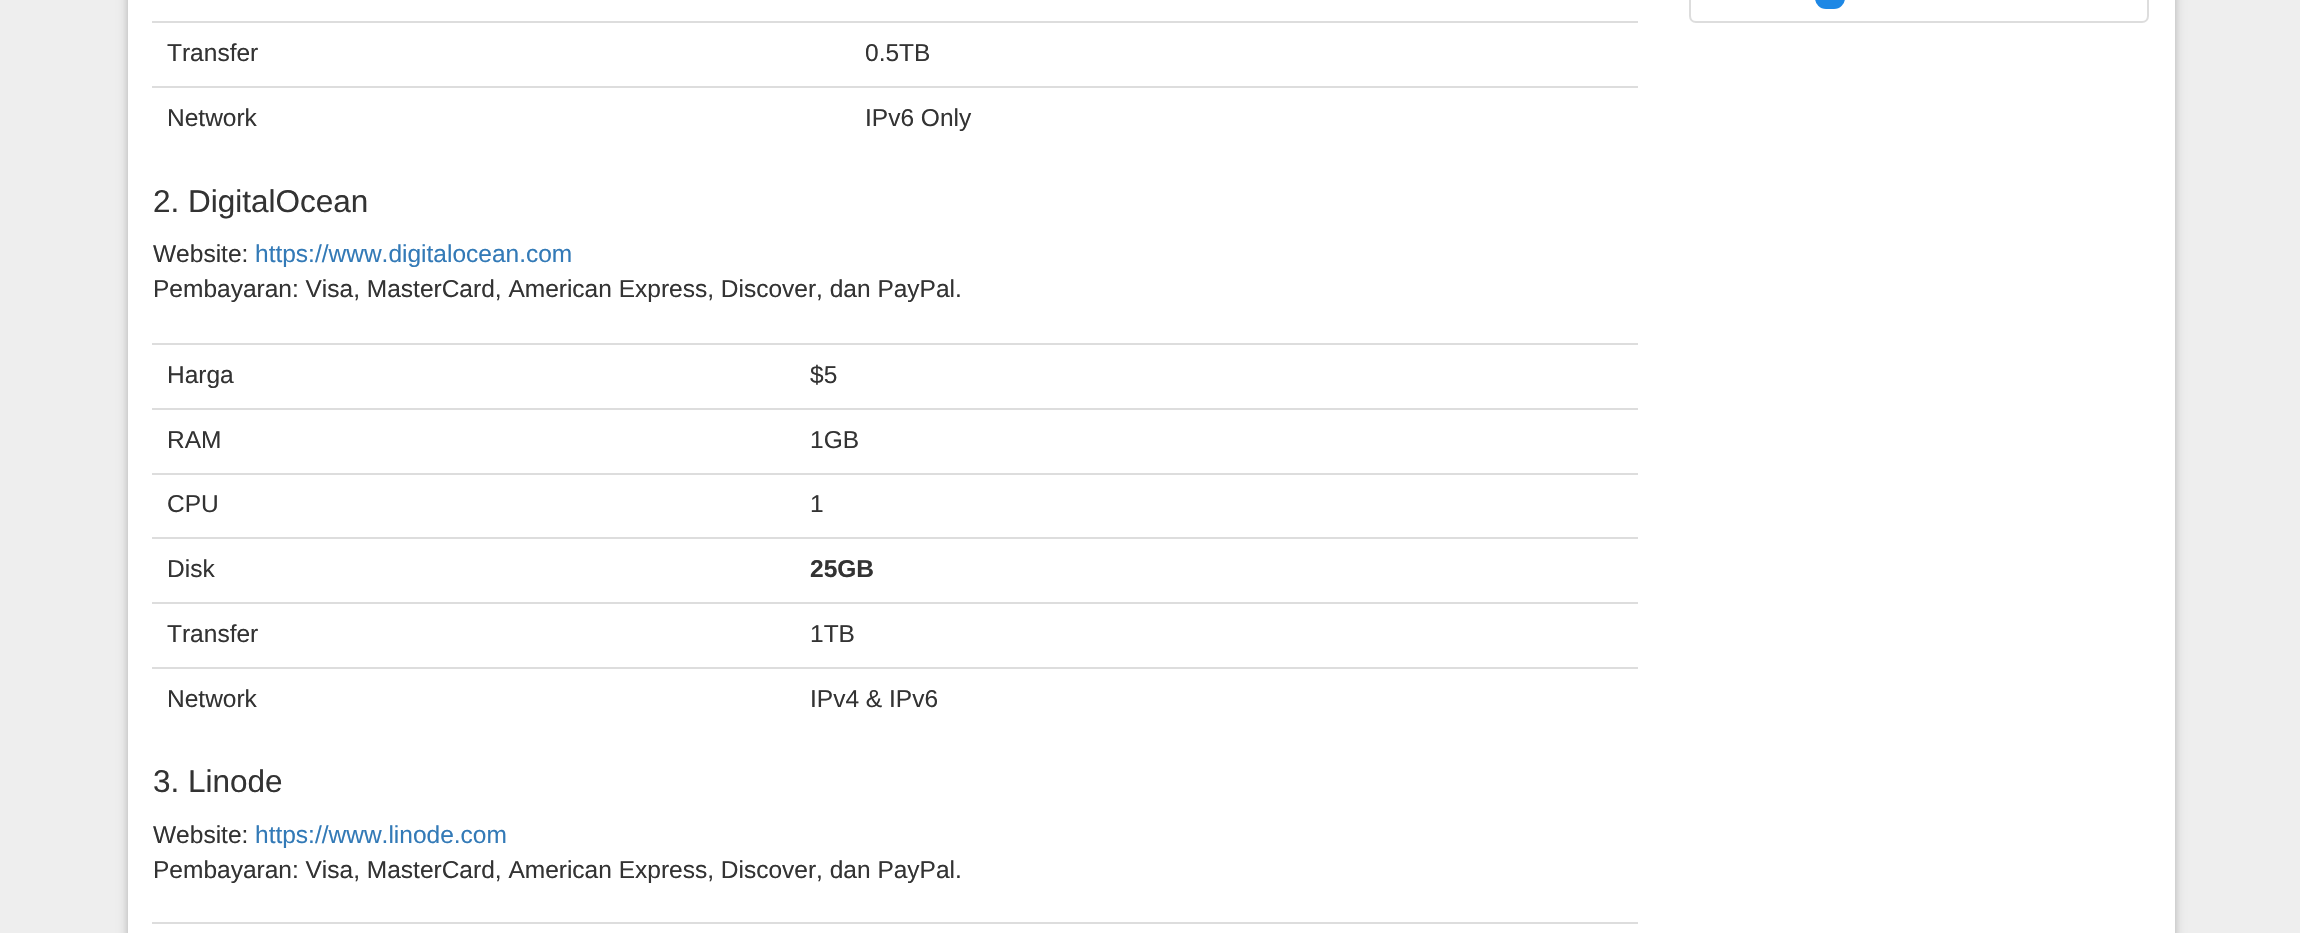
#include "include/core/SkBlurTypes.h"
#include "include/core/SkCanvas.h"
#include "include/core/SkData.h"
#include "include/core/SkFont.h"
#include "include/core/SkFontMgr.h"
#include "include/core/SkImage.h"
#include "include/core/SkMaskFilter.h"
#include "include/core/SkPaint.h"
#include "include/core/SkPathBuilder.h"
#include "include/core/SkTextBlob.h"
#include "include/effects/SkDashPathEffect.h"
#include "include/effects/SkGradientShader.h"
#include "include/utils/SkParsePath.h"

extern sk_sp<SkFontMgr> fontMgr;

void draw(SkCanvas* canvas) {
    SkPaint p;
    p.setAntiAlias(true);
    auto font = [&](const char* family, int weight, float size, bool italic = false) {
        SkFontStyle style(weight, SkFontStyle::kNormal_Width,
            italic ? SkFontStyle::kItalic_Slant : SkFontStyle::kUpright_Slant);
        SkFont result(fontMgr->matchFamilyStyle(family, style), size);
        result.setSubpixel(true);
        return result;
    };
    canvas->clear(0xFFEEEEEE);
    p.setColor(0x42000000);
    p.setMaskFilter(SkMaskFilter::MakeBlur(kNormal_SkBlurStyle, 4.5f));
    canvas->drawRect(SkRect::MakeLTRB(128, -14, 2175, 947), p);
    p.setMaskFilter(nullptr);
    p.setColor(0xFFFFFFFF);
    canvas->drawRect(SkRect::MakeLTRB(128, 0, 2175, 933), p);
    p.setStyle(SkPaint::kStroke_Style);
    p.setStrokeWidth(2);
    p.setColor(0xFFDDDDDD);
    canvas->drawPath(SkPathBuilder().moveTo(1690, -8).lineTo(2148, -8).lineTo(2148, 16).cubicTo(2148, 19.5f, 2145.5f, 22, 2142, 22).lineTo(1696, 22).cubicTo(1692.5f, 22, 1690, 19.5f, 1690, 16).close().detach(), p);
    p.setStyle(SkPaint::kFill_Style);
    p.setColor(0xFF1E88E5);
    canvas->drawRoundRect(SkRect::MakeLTRB(1815, -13, 1845, 9), 13, 13, p);
    auto font1 = font("Liberation Sans", 400, 24.5f);
    p.setColor(0xFF333333);
    canvas->drawString("Transfer", 167, 61, font1, p);
    p.setColor(0xFFDDDDDD);
    canvas->drawRect(SkRect::MakeLTRB(152, 21, 1638, 23), p);
    p.setColor(0xFF333333);
    canvas->drawString("0.5TB", 865, 61, font1, p);
    canvas->drawString("Network", 167, 126, font1, p);
    p.setColor(0xFFDDDDDD);
    canvas->drawRect(SkRect::MakeLTRB(152, 86, 1638, 88), p);
    p.setColor(0xFF333333);
    canvas->drawString("IPv6 Only", 865, 126, font1, p);
    auto font2 = font("Liberation Sans", 400, 31.5f);
    canvas->drawString("2. DigitalOcean", 153, 212, font2, p);
    canvas->drawString("Website:", 153, 262, font1, p);
    p.setColor(0xFF337AB7);
    canvas->drawString("https://www.digitalocean.com", 255, 262, font1, p);
    p.setColor(0xFF333333);
    canvas->drawString("Pembayaran: Visa, MasterCard, American Express, Discover, dan PayPal.", 153, 297, font1, p);
    canvas->drawString("Harga", 167, 383, font1, p);
    p.setColor(0xFFDDDDDD);
    canvas->drawRect(SkRect::MakeLTRB(152, 343, 1638, 345), p);
    p.setColor(0xFF333333);
    canvas->drawString("$5", 810, 383, font1, p);
    canvas->drawString("RAM", 167, 448, font1, p);
    p.setColor(0xFFDDDDDD);
    canvas->drawRect(SkRect::MakeLTRB(152, 408, 1638, 410), p);
    p.setColor(0xFF333333);
    canvas->drawString("1GB", 810, 448, font1, p);
    canvas->drawString("CPU", 167, 512, font1, p);
    p.setColor(0xFFDDDDDD);
    canvas->drawRect(SkRect::MakeLTRB(152, 473, 1638, 475), p);
    p.setColor(0xFF333333);
    canvas->drawString("1", 810, 512, font1, p);
    canvas->drawString("Disk", 167, 577, font1, p);
    p.setColor(0xFFDDDDDD);
    canvas->drawRect(SkRect::MakeLTRB(152, 537, 1638, 539), p);
    auto font3 = font("Liberation Sans", 700, 24.5f);
    p.setColor(0xFF333333);
    canvas->drawString("25GB", 810, 577, font3, p);
    canvas->drawString("Transfer", 167, 642, font1, p);
    p.setColor(0xFFDDDDDD);
    canvas->drawRect(SkRect::MakeLTRB(152, 602, 1638, 604), p);
    p.setColor(0xFF333333);
    canvas->drawString("1TB", 810, 642, font1, p);
    canvas->drawString("Network", 167, 707, font1, p);
    p.setColor(0xFFDDDDDD);
    canvas->drawRect(SkRect::MakeLTRB(152, 667, 1638, 669), p);
    p.setColor(0xFF333333);
    canvas->drawString("IPv4 & IPv6", 810, 707, font1, p);
    canvas->drawString("3. Linode", 153, 792, font2, p);
    canvas->drawString("Website:", 153, 843, font1, p);
    p.setColor(0xFF337AB7);
    canvas->drawString("https://www.linode.com", 255, 843, font1, p);
    p.setColor(0xFF333333);
    canvas->drawString("Pembayaran: Visa, MasterCard, American Express, Discover, dan PayPal.", 153, 878, font1, p);
    p.setColor(0xFFDDDDDD);
    canvas->drawRect(SkRect::MakeLTRB(152, 922, 1638, 924), p);
}
